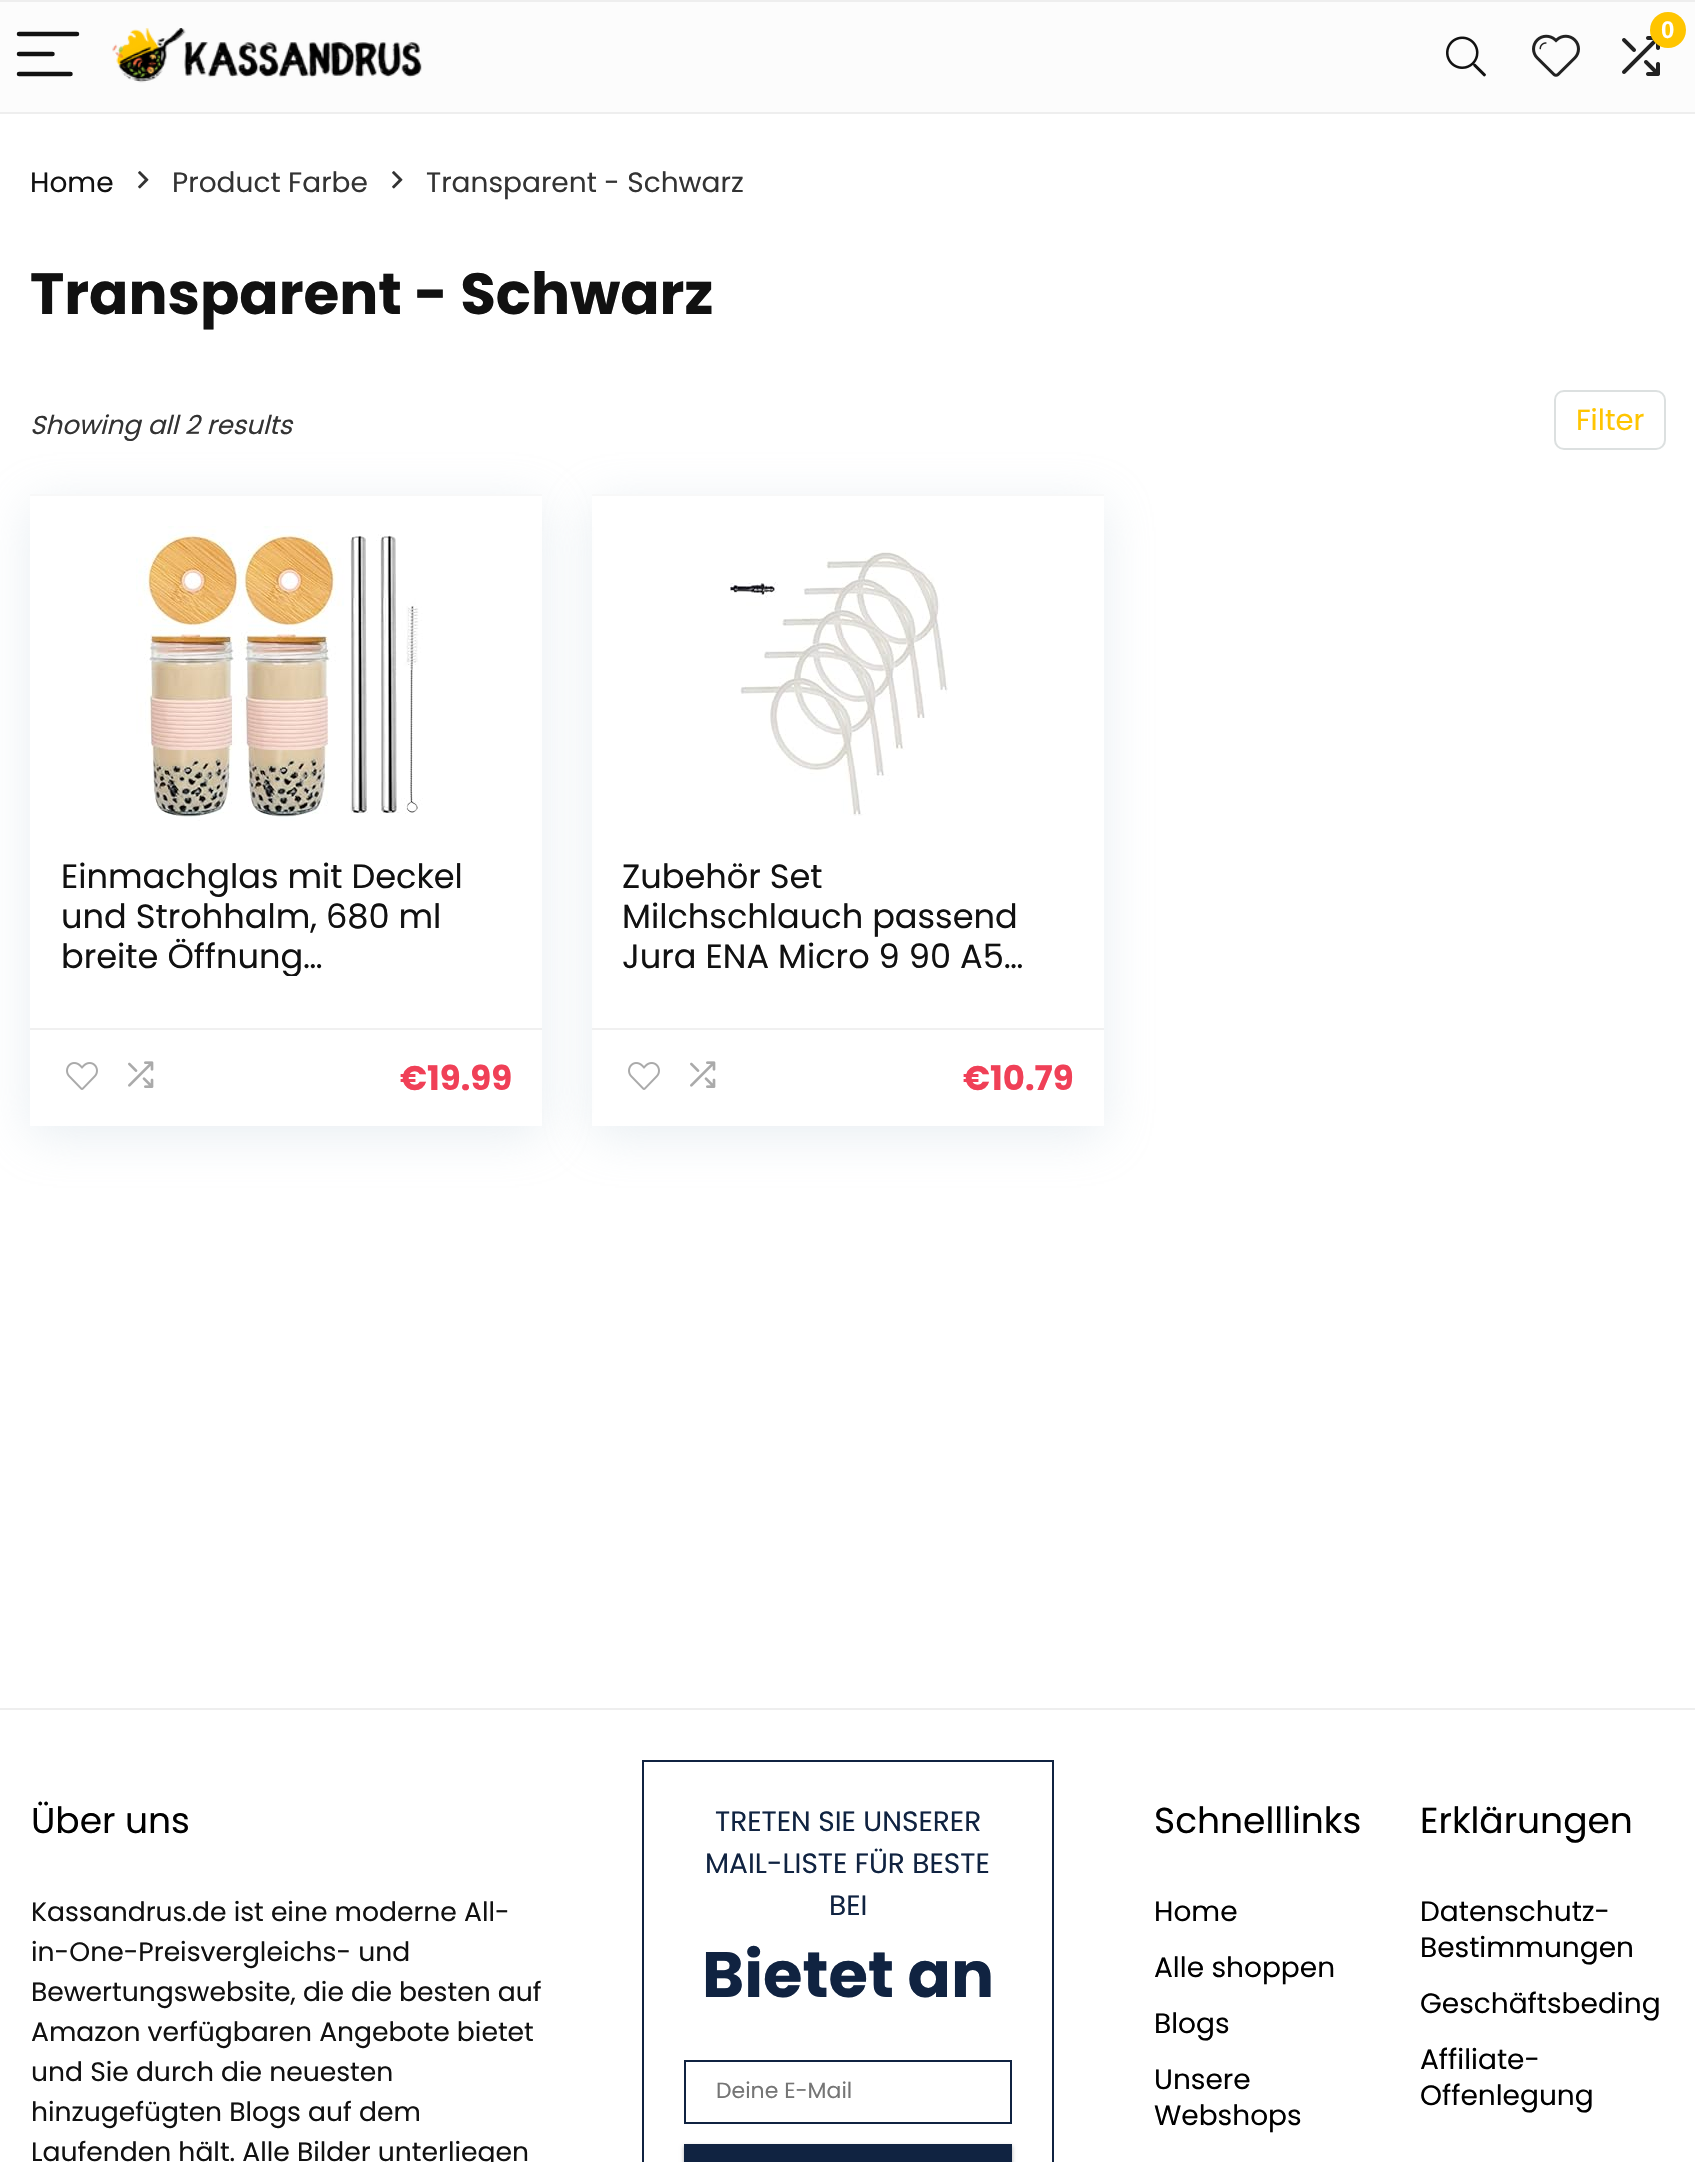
#include "include/core/SkBlurTypes.h"
#include "include/core/SkCanvas.h"
#include "include/core/SkData.h"
#include "include/core/SkFont.h"
#include "include/core/SkFontMgr.h"
#include "include/core/SkImage.h"
#include "include/core/SkMaskFilter.h"
#include "include/core/SkPaint.h"
#include "include/core/SkPathBuilder.h"
#include "include/core/SkTextBlob.h"
#include "include/effects/SkDashPathEffect.h"
#include "include/effects/SkGradientShader.h"
#include "include/utils/SkParsePath.h"

extern sk_sp<SkFontMgr> fontMgr;

void draw(SkCanvas* canvas) {
    SkPaint p;
    p.setAntiAlias(true);
    auto font = [&](const char* family, int weight, float size, bool italic = false) {
        SkFontStyle style(weight, SkFontStyle::kNormal_Width,
            italic ? SkFontStyle::kItalic_Slant : SkFontStyle::kUpright_Slant);
        SkFont result(fontMgr->matchFamilyStyle(family, style), size);
        result.setSubpixel(true);
        return result;
    };
    auto drawPhoto = [&](const char* path, float l, float t, float r, float b) {
        auto image = SkImages::DeferredFromEncodedData(SkData::MakeFromFileName(path));
        canvas->drawImageRect(image, SkRect::MakeLTRB(l, t, r, b), SkSamplingOptions());
    };
    canvas->clear(0xFFFFFFFF);
    {
        const struct { float l, t, r, b; SkColor color; } items[] = {
            {0, 2, 1695, 112, 0xFFFCFCFC},
            {0, 0, 1695, 2, 0xFFEEEEEE},
            {0, 112, 1695, 114, 0xFFEEEEEE},
        };
        for (auto [l, t, r, b, color] : items) {
            p.setColor(color);
            canvas->drawRect(SkRect::MakeLTRB(l, t, r, b), p);
        }
    }
    p.setStyle(SkPaint::kStroke_Style);
    p.setStrokeWidth(4.5f);
    p.setStrokeCap(SkPaint::kRound_Cap);
    p.setColor(0xFF111111);
    canvas->drawPath(SkPathBuilder().moveTo(19, 34).lineTo(77, 34).detach(), p);
    canvas->drawPath(SkPathBuilder().moveTo(19, 54).lineTo(52.5f, 54).moveTo(19, 74).lineTo(70.5f, 74).detach(), p);
    drawPhoto("media/1.png", 112, 28, 422, 83);
    drawPhoto("media/2.png", 1622, 36, 1660, 76);
    p.setStyle(SkPaint::kFill_Style);
    p.setColor(0xFFFFC500);
    canvas->drawCircle(1668, 30, 18, p);
    auto font1 = font("Liberation Sans", 700, 24);
    p.setColor(0xFFFFFFFF);
    canvas->drawString("0", 1661, 38, font1, p);
    drawPhoto("media/3.png", 1446, 36, 1486, 77);
    drawPhoto("media/4.png", 1532, 34, 1580, 77);
    auto font2 = font("Poppins", 400, 28);
    p.setColor(0xFF111111);
    canvas->drawString("Home", 30, 192, font2, p);
    drawPhoto("media/5.png", 138, 171, 149, 189);
    p.setColor(0xFF333333);
    canvas->drawString("Product Farbe", 172, 192, font2, p);
    drawPhoto("media/5.png", 392, 171, 403, 189);
    canvas->drawString("Transparent - Schwarz", 426, 192, font2, p);
    auto font3 = font("Poppins", 700, 58);
    p.setColor(0xFF111111);
    canvas->drawString("Transparent - Schwarz", 30, 314, font3, p);
    auto font4 = font("Poppins", 400, 26, true);
    p.setColor(0xFF333333);
    canvas->drawString("Showing all 2 results", 30, 434, font4, p);
    p.setStyle(SkPaint::kStroke_Style);
    p.setStrokeWidth(2);
    p.setStrokeCap(SkPaint::kButt_Cap);
    p.setColor(0xFFDCE0E0);
    canvas->drawRoundRect(SkRect::MakeLTRB(1555, 391, 1665, 449), 9, 9, p);
    auto font5 = font("Poppins", 400, 29);
    p.setStyle(SkPaint::kFill_Style);
    p.setColor(0xFFFFC500);
    canvas->drawString("Filter", 1576, 430, font5, p);
    canvas->save();
    canvas->clipPath(SkPathBuilder(SkPathFillType::kEvenOdd).moveTo(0, 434).lineTo(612, 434).lineTo(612, 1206).lineTo(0, 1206).close().moveTo(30, 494).lineTo(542, 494).lineTo(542, 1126).lineTo(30, 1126).close().detach(), true);
    p.setColor(0x59BCCFDB);
    p.setMaskFilter(SkMaskFilter::MakeBlur(kNormal_SkBlurStyle, 23));
    canvas->drawRect(SkRect::MakeLTRB(30, 504, 542, 1136), p);
    p.setMaskFilter(nullptr);
    canvas->restore();
    p.setColor(0xFFF8F8F8);
    canvas->drawRect(SkRect::MakeLTRB(30, 494, 542, 496), p);
    drawPhoto("media/6.png", 136, 526, 423, 821);
    auto font6 = font("Poppins", 400, 33.6f);
    p.setColor(0xFF111111);
    canvas->drawString("Einmachglas mit Deckel", 61, 888, font6, p);
    canvas->drawString("und Strohhalm, 680 ml", 61, 928, font6, p);
    canvas->save();
    canvas->clipRect(SkRect::MakeLTRB(60, 856, 482, 976));
    canvas->drawString("breite Öffnung…", 61, 968, font6, p);
    canvas->restore();
    p.setColor(0xFFF0F0F0);
    canvas->drawRect(SkRect::MakeLTRB(30, 1028, 542, 1030), p);
    drawPhoto("media/7.png", 66, 1062, 98, 1090);
    drawPhoto("media/8.png", 128, 1061, 154, 1088);
    auto font7 = font("Poppins", 700, 34);
    p.setColor(0xFFF04057);
    canvas->drawString("€19.99", 400, 1090, font7, p);
    canvas->save();
    canvas->clipPath(SkPathBuilder(SkPathFillType::kEvenOdd).moveTo(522, 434).lineTo(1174, 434).lineTo(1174, 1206).lineTo(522, 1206).close().moveTo(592, 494).lineTo(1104, 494).lineTo(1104, 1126).lineTo(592, 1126).close().detach(), true);
    p.setColor(0x59BCCFDB);
    p.setMaskFilter(SkMaskFilter::MakeBlur(kNormal_SkBlurStyle, 23));
    canvas->drawRect(SkRect::MakeLTRB(592, 504, 1104, 1136), p);
    p.setMaskFilter(nullptr);
    canvas->restore();
    p.setColor(0xFFF8F8F8);
    canvas->drawRect(SkRect::MakeLTRB(592, 494, 1104, 496), p);
    drawPhoto("media/9.png", 730, 550, 948, 816);
    p.setColor(0xFF111111);
    {
        const struct { const char* s; float x, y; } items[] = {
            {"Zubehör Set", 622, 888},
            {"Milchschlauch passend", 622, 928},
            {"Jura ENA Micro 9 90 A5…", 622, 968},
        };
        for (auto [s, x, y] : items) {
            canvas->drawString(s, x, y, font6, p);
        }
    }
    p.setColor(0xFFF0F0F0);
    canvas->drawRect(SkRect::MakeLTRB(592, 1028, 1104, 1030), p);
    drawPhoto("media/7.png", 628, 1062, 660, 1090);
    drawPhoto("media/8.png", 690, 1061, 716, 1088);
    p.setColor(0xFFF04057);
    canvas->drawString("€10.79", 963, 1090, font7, p);
    p.setColor(0xFFEEEEEE);
    canvas->drawRect(SkRect::MakeLTRB(0, 1708, 1695, 1710), p);
    auto font8 = font("Poppins", 400, 36);
    p.setColor(0xFF000000);
    canvas->drawString("Über uns", 31, 1833, font8, p);
    auto font9 = font("Poppins", 400, 26.6f);
    p.setColor(0xFF111111);
    {
        const struct { const char* s; float x, y; } items[] = {
            {"Kassandrus.de ist eine moderne All-", 31, 1921},
            {"in-One-Preisvergleichs- und", 31, 1961},
            {"Bewertungswebsite, die die besten auf", 31, 2001},
            {"Amazon verfügbaren Angebote bietet", 31, 2041},
            {"und Sie durch die neuesten", 31, 2081},
            {"hinzugefügten Blogs auf dem", 31, 2121},
            {"Laufenden hält. Alle Bilder unterliegen", 31, 2161},
        };
        for (auto [s, x, y] : items) {
            canvas->drawString(s, x, y, font9, p);
        }
    }
    p.setStyle(SkPaint::kStroke_Style);
    p.setColor(0xFF102341);
    canvas->drawRect(SkRect::MakeLTRB(643, 1761, 1053, 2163), p);
    p.setStyle(SkPaint::kFill_Style);
    {
        const struct { const char* s; float x, y; } items[] = {
            {"TRETEN SIE UNSERER", 715, 1831},
            {"MAIL-LISTE FÜR BESTE", 705, 1873},
            {"BEI", 829, 1915},
        };
        for (auto [s, x, y] : items) {
            canvas->drawString(s, x, y, font2, p);
        }
    }
    auto font10 = font("Poppins", 700, 64);
    canvas->drawString("Bietet an", 702, 1997, font10, p);
    p.setStyle(SkPaint::kStroke_Style);
    canvas->drawRect(SkRect::MakeLTRB(685, 2061, 1011, 2123), p);
    auto font11 = font("Poppins", 400, 22);
    p.setStyle(SkPaint::kFill_Style);
    p.setColor(0xFF757575);
    canvas->drawString("Deine E-Mail", 716, 2098, font11, p);
    p.setColor(0x14000000);
    p.setMaskFilter(SkMaskFilter::MakeBlur(kNormal_SkBlurStyle, 2));
    canvas->drawRect(SkRect::MakeLTRB(684, 2146, 1012, 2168), p);
    p.setMaskFilter(nullptr);
    p.setColor(0x4D3C4043);
    p.setMaskFilter(SkMaskFilter::MakeBlur(kNormal_SkBlurStyle, 2));
    canvas->drawRect(SkRect::MakeLTRB(684, 2146, 1012, 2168), p);
    p.setMaskFilter(nullptr);
    p.setColor(0xFF102341);
    canvas->drawRect(SkRect::MakeLTRB(684, 2144, 1012, 2162), p);
    p.setColor(0xFF000000);
    canvas->drawString("Schnelllinks", 1154, 1833, font8, p);
    {
        const struct { const char* s; float x, y; } items[] = {
            {"Home", 1154, 1921},
            {"Alle shoppen", 1154, 1977},
            {"Blogs", 1154, 2033},
            {"Unsere", 1154, 2089},
            {"Webshops", 1154, 2125},
        };
        for (auto [s, x, y] : items) {
            canvas->drawString(s, x, y, font2, p);
        }
    }
    canvas->drawString("Erklärungen", 1420, 1833, font8, p);
    {
        const struct { const char* s; float x, y; } items[] = {
            {"Datenschutz-", 1420, 1921},
            {"Bestimmungen", 1420, 1957},
            {"Geschäftsbeding", 1420, 2013},
            {"Affiliate-", 1420, 2069},
            {"Offenlegung", 1420, 2105},
        };
        for (auto [s, x, y] : items) {
            canvas->drawString(s, x, y, font2, p);
        }
    }
}
